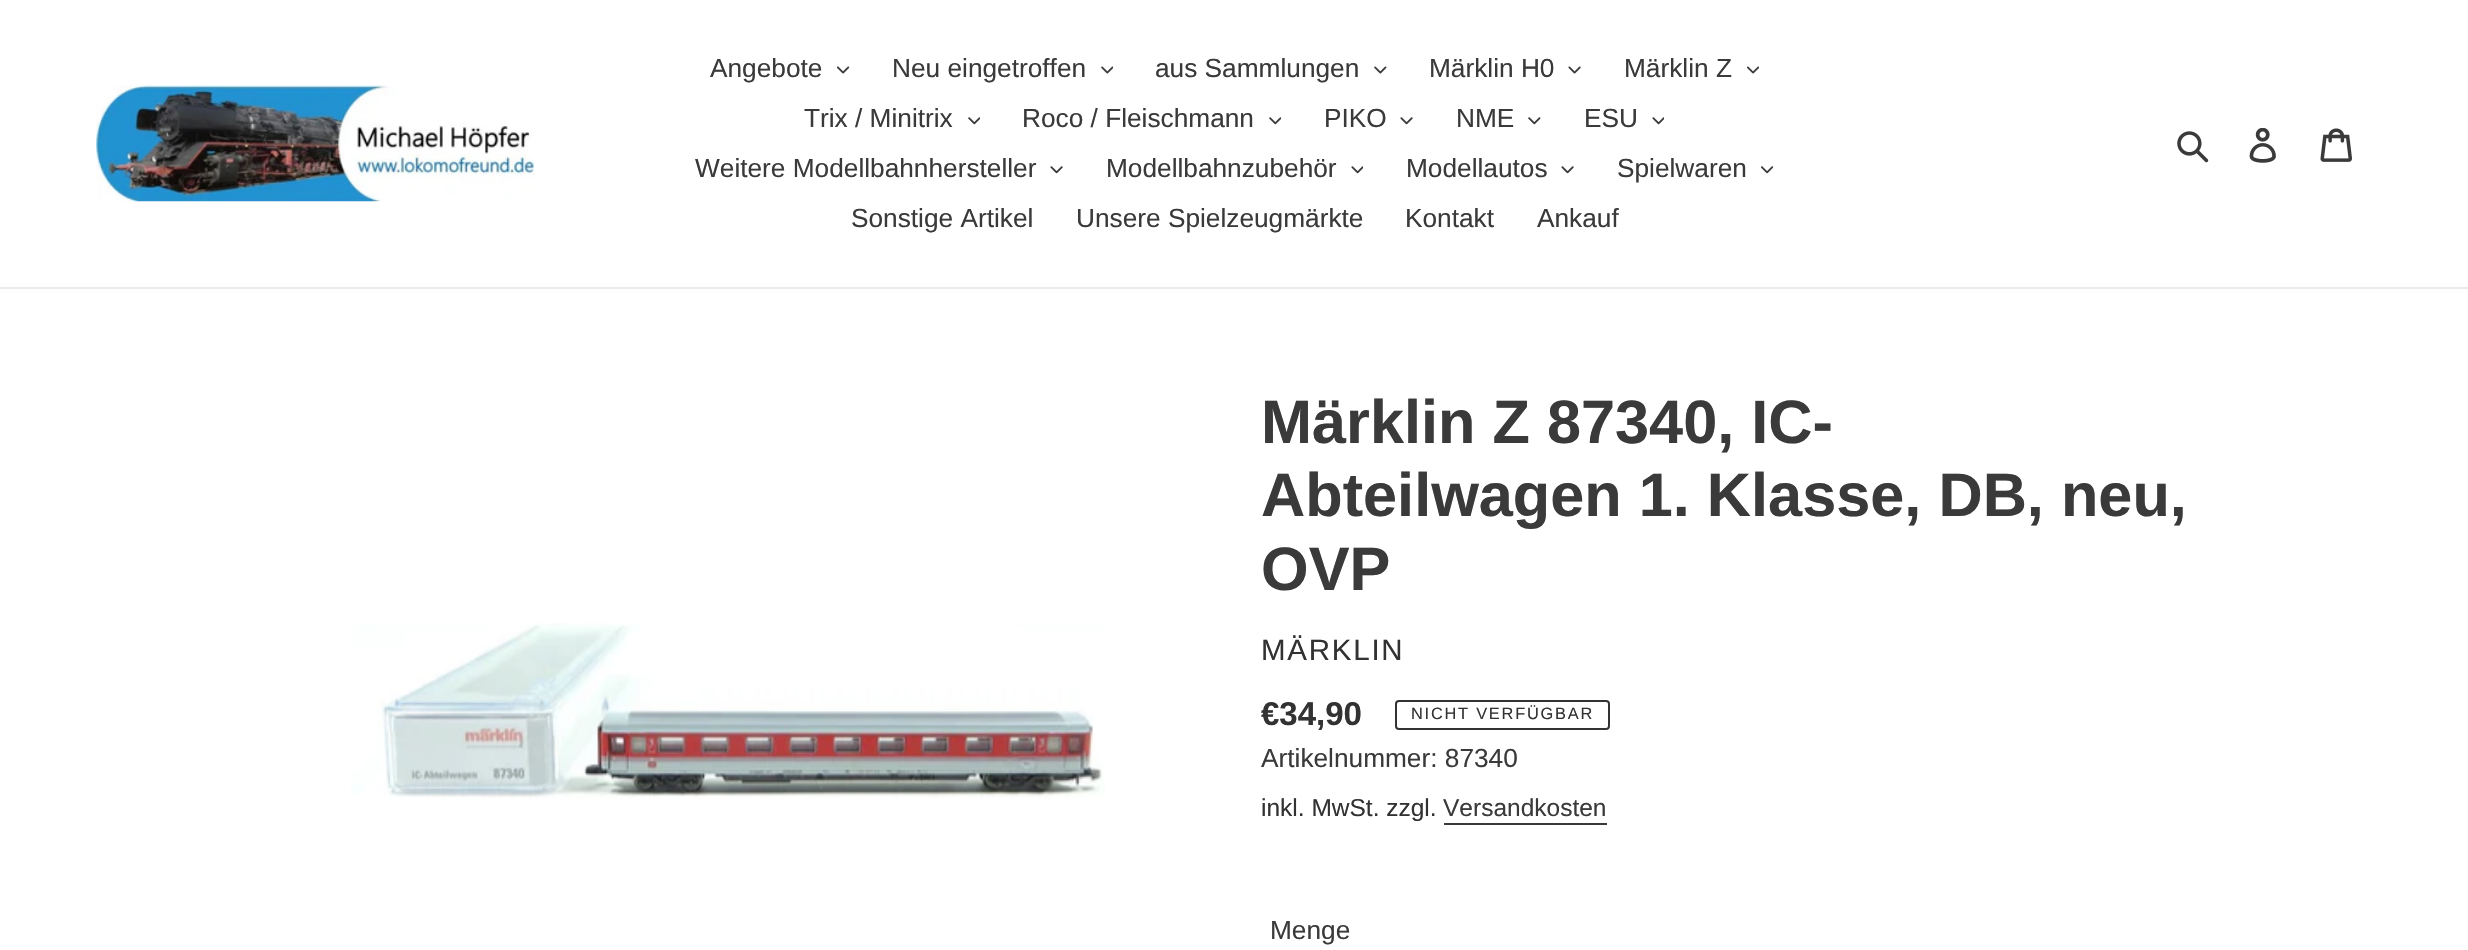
#include "include/core/SkBlurTypes.h"
#include "include/core/SkCanvas.h"
#include "include/core/SkData.h"
#include "include/core/SkFont.h"
#include "include/core/SkFontMgr.h"
#include "include/core/SkImage.h"
#include "include/core/SkMaskFilter.h"
#include "include/core/SkPaint.h"
#include "include/core/SkPathBuilder.h"
#include "include/core/SkTextBlob.h"
#include "include/effects/SkDashPathEffect.h"
#include "include/effects/SkGradientShader.h"
#include "include/utils/SkParsePath.h"

extern sk_sp<SkFontMgr> fontMgr;

void draw(SkCanvas* canvas) {
    SkPaint p;
    p.setAntiAlias(true);
    auto font = [&](const char* family, int weight, float size, bool italic = false) {
        SkFontStyle style(weight, SkFontStyle::kNormal_Width,
            italic ? SkFontStyle::kItalic_Slant : SkFontStyle::kUpright_Slant);
        SkFont result(fontMgr->matchFamilyStyle(family, style), size);
        result.setSubpixel(true);
        return result;
    };
    auto drawTracked = [&](const char* s, float x, float y, const SkFont& font, const SkPaint& ink, float letter, float word) {
        std::vector<SkGlyphID> glyphs(font.countText(s, strlen(s), SkTextEncoding::kUTF8));
        std::vector<float> xs(glyphs.size());
        font.textToGlyphs(s, strlen(s), SkTextEncoding::kUTF8, glyphs);
        font.getXPos(glyphs, xs, x);
        float extra = 0;
        for (size_t i = 0; i < glyphs.size(); i++) {
            xs[i] += extra;
            extra += letter + word * (glyphs[i] == font.unicharToGlyph(' '));
        }
        canvas->drawTextBlob(SkTextBlob::MakeFromPosHGlyphs(glyphs, xs, y, font), 0, 0, ink);
    };
    auto drawPhoto = [&](const char* path, float l, float t, float r, float b) {
        auto image = SkImages::DeferredFromEncodedData(SkData::MakeFromFileName(path));
        canvas->drawImageRect(image, SkRect::MakeLTRB(l, t, r, b), SkSamplingOptions());
    };
    canvas->clear(0xFFFFFFFF);
    p.setColor(0xFFEBEBEB);
    canvas->drawRect(SkRect::MakeLTRB(0, 287, 2468, 289), p);
    drawPhoto("media/1.png", 96, 85, 534, 202);
    auto font1 = font("Liberation Sans", 400, 26.25f);
    p.setColor(0xFF3A3A3A);
    canvas->drawString("Angebote", 710, 77, font1, p);
    drawPhoto("media/2.png", 837, 66, 850, 74);
    canvas->drawString("Neu eingetroffen", 892, 77, font1, p);
    drawPhoto("media/3.png", 1101, 66, 1113, 74);
    canvas->drawString("aus Sammlungen", 1155, 77, font1, p);
    drawPhoto("media/4.png", 1374, 66, 1387, 74);
    canvas->drawString("Märklin H0", 1429, 77, font1, p);
    drawPhoto("media/5.png", 1568, 66, 1581, 74);
    canvas->drawString("Märklin Z", 1624, 77, font1, p);
    drawPhoto("media/6.png", 1747, 66, 1759, 74);
    canvas->drawString("Trix / Minitrix", 804, 127, font1, p);
    drawPhoto("media/7.png", 968, 117, 980, 125);
    canvas->drawString("Roco / Fleischmann", 1022, 127, font1, p);
    drawPhoto("media/7.png", 1269, 117, 1281, 125);
    canvas->drawString("PIKO", 1324, 127, font1, p);
    drawPhoto("media/8.png", 1400, 117, 1413, 125);
    canvas->drawString("NME", 1456, 127, font1, p);
    drawPhoto("media/9.png", 1528, 117, 1541, 125);
    canvas->drawString("ESU", 1584, 127, font1, p);
    drawPhoto("media/10.png", 1652, 117, 1664, 125);
    canvas->drawString("Weitere Modellbahnhersteller", 695, 177, font1, p);
    drawPhoto("media/8.png", 1050, 166, 1063, 174);
    canvas->drawString("Modellbahnzubehör", 1106, 177, font1, p);
    drawPhoto("media/10.png", 1351, 166, 1363, 174);
    canvas->drawString("Modellautos", 1406, 177, font1, p);
    drawPhoto("media/8.png", 1561, 166, 1574, 174);
    canvas->drawString("Spielwaren", 1617, 177, font1, p);
    drawPhoto("media/11.png", 1761, 166, 1774, 174);
    {
        const struct { const char* s; float x, y; } items[] = {
            {"Sonstige Artikel", 851, 227},
            {"Unsere Spielzeugmärkte", 1076, 227},
            {"Kontakt", 1405, 227},
            {"Ankauf", 1537, 227},
        };
        for (auto [s, x, y] : items) {
            canvas->drawString(s, x, y, font1, p);
        }
    }
    drawPhoto("media/12.png", 2177, 131, 2209, 163);
    drawPhoto("media/13.png", 2249, 128, 2276, 163);
    drawPhoto("media/14.png", 2320, 128, 2352, 162);
    drawPhoto("media/15.png", 351, 623, 1105, 798);
    auto font2 = font("Liberation Sans", 700, 61.25f);
    {
        const struct { const char* s; float x, y; } items[] = {
            {"Märklin Z 87340, IC-", 1261, 443},
            {"Abteilwagen 1. Klasse, DB, neu,", 1261, 516},
            {"OVP", 1261, 590},
        };
        for (auto [s, x, y] : items) {
            canvas->drawString(s, x, y, font2, p);
        }
    }
    auto font3 = font("Liberation Sans", 400, 29.5f);
    p.setColor(0xFF333232);
    drawTracked("MÄRKLIN", 1261, 660, font3, p, 1.75f, 0);
    auto font4 = font("Liberation Sans", 700, 33);
    canvas->drawString("€34,90", 1261, 725, font4, p);
    p.setStyle(SkPaint::kStroke_Style);
    p.setStrokeWidth(2);
    canvas->drawRoundRect(SkRect::MakeLTRB(1396, 701, 1609, 729), 3, 3, p);
    auto font5 = font("Liberation Sans", 400, 16.4f);
    p.setStyle(SkPaint::kFill_Style);
    drawTracked("NICHT VERFÜGBAR", 1411, 719, font5, p, 1.75f, 0);
    p.setColor(0xFF3A3A3A);
    canvas->drawString("Artikelnummer: 87340", 1261, 767, font1, p);
    auto font6 = font("Liberation Sans", 400, 24.5f);
    p.setColor(0xFF333232);
    canvas->drawString("inkl. MwSt. zzgl.", 1261, 816, font6, p);
    p.setColor(0xFF3A3A3A);
    canvas->drawString("Versandkosten", 1443, 816, font6, p);
    canvas->drawRect(SkRect::MakeLTRB(1444, 823, 1607, 825), p);
    canvas->drawString("Menge", 1270, 939, font1, p);
}
